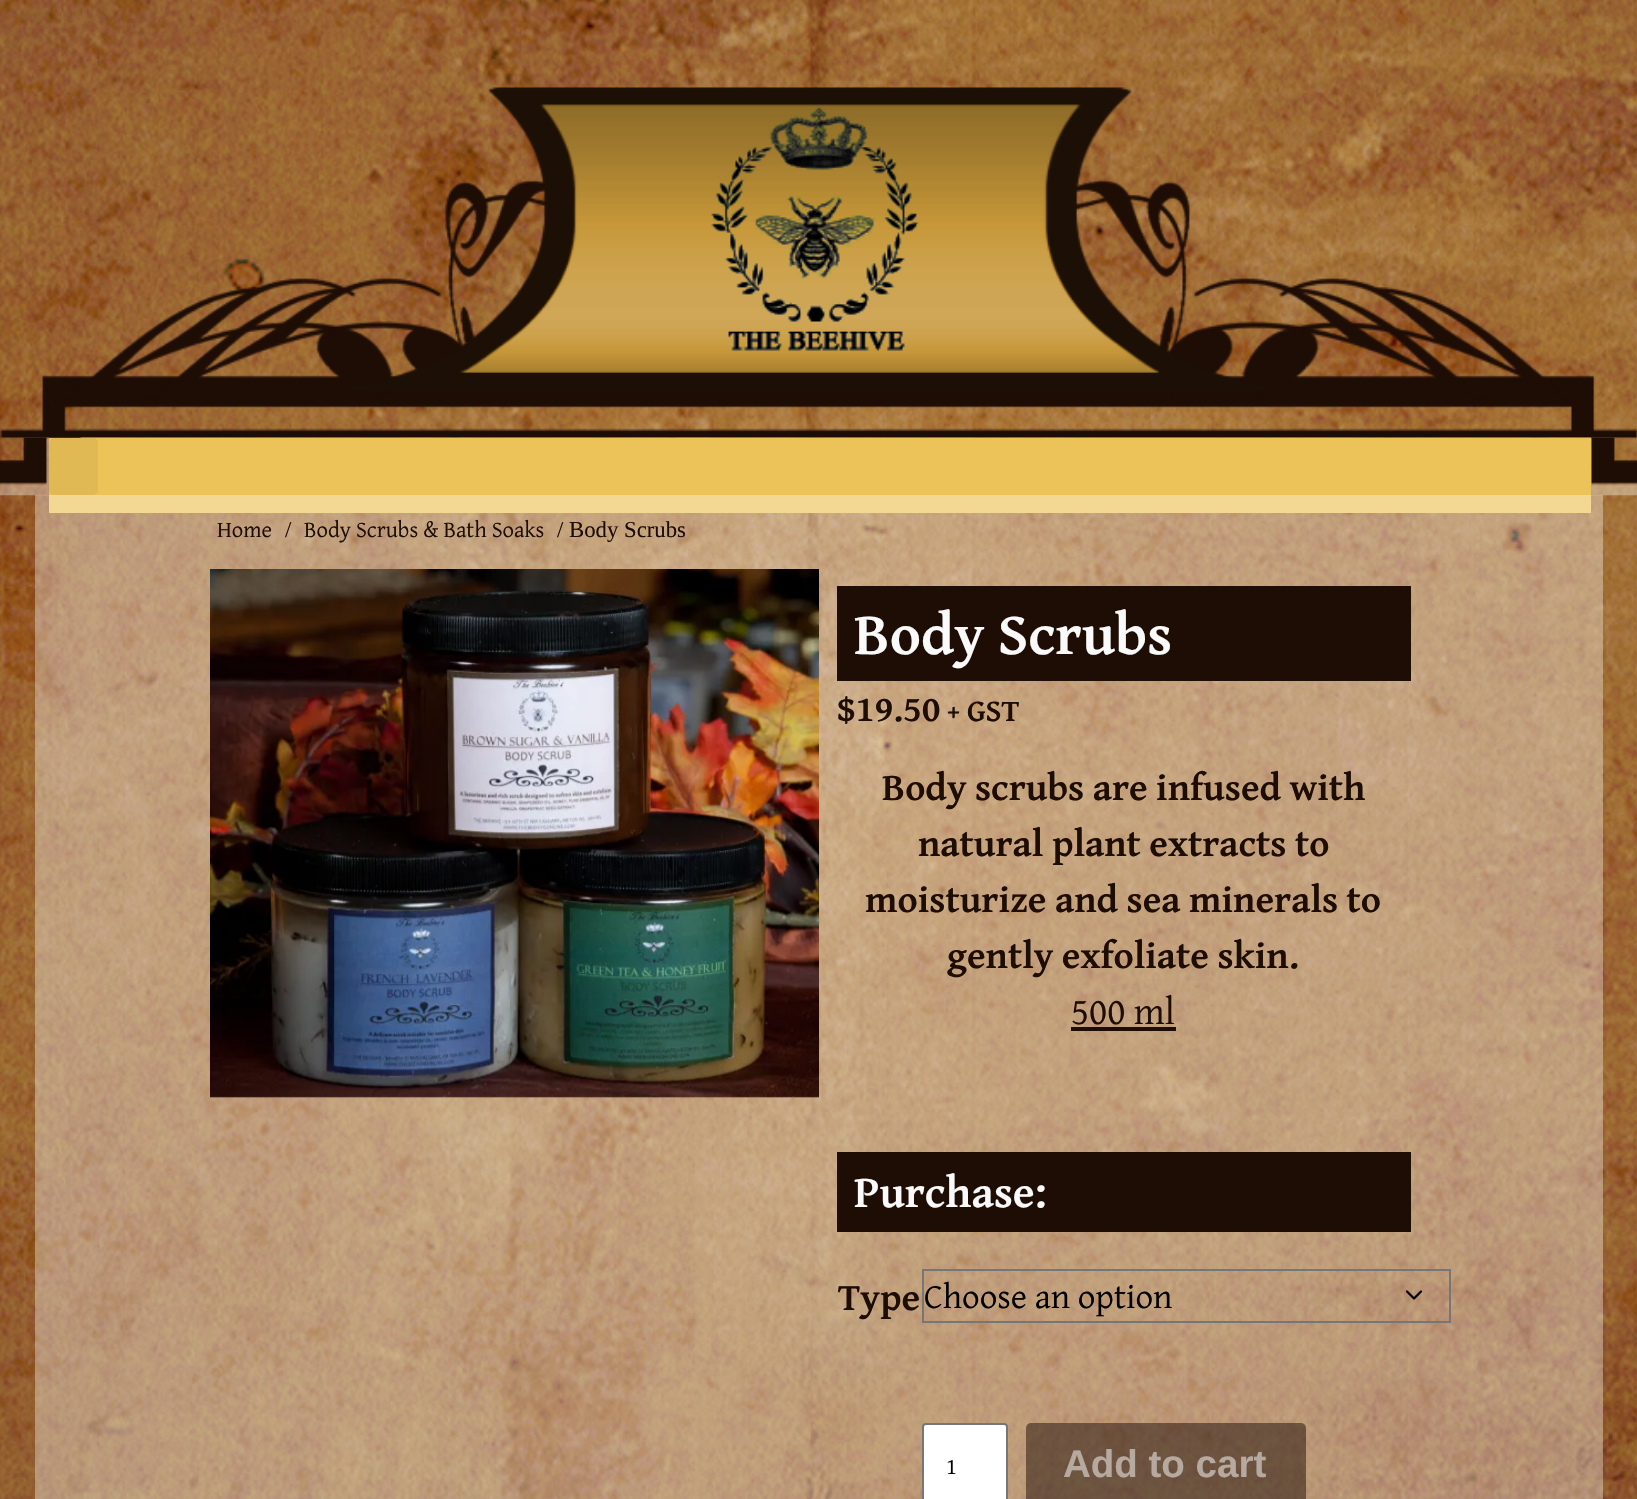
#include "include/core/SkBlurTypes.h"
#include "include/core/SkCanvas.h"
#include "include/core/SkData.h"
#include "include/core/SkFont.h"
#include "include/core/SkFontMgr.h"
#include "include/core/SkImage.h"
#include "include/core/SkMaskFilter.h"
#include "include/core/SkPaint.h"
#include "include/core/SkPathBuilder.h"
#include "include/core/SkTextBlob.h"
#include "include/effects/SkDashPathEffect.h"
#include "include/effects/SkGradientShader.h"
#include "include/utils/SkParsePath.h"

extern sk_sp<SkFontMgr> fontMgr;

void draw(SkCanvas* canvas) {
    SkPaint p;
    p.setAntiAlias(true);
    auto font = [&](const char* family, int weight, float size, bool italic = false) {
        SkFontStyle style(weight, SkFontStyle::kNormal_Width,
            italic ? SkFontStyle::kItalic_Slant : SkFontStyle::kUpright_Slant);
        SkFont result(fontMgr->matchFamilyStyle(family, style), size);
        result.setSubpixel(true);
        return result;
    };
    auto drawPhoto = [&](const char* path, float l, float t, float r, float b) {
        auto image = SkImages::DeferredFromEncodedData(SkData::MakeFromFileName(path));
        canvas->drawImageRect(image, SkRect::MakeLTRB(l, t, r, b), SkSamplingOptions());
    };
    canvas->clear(0xFFFFFFFF);
    drawPhoto("media/1.png", 0, 0, 1637, 1499);
    drawPhoto("media/2.png", 0, 87, 1637, 438);
    drawPhoto("media/3.png", 0, 437, 1637, 496);
    drawPhoto("media/4.png", 49, 437, 1591, 438);
    p.setColor(0xFFECC358);
    canvas->drawRect(SkRect::MakeLTRB(49, 438, 1591, 513), p);
    p.setColor(0xFFE0B954);
    canvas->drawRoundRect(SkRect::MakeLTRB(49, 438, 98, 495), 5, 5, p);
    p.setColor(0x59FFFFFF);
    canvas->drawRect(SkRect::MakeLTRB(35, 495, 1603, 1499), p);
    auto font1 = font("Gentium Plus", 400, 22.75f);
    p.setColor(0xFF1E0D05);
    canvas->drawString("Home", 217, 537, font1, p);
    auto font2 = font("Liberation Serif", 400, 22.75f);
    canvas->drawString("/", 285, 537, font2, p);
    canvas->drawString("Body Scrubs & Bath Soaks", 304, 537, font1, p);
    canvas->drawString("/ Body Scrubs", 557, 537, font2, p);
    drawPhoto("media/5.png", 210, 569, 819, 1098);
    canvas->drawRect(SkRect::MakeLTRB(837, 586, 1411, 681), p);
    auto font3 = font("Gentium Plus", 700, 59.5f);
    p.setColor(0xFFFAFAFA);
    canvas->drawString("Body Scrubs", 854, 654, font3, p);
    auto font4 = font("Gentium Plus", 700, 37);
    p.setColor(0xFF1E0D05);
    canvas->drawString("$19.50", 837, 721, font4, p);
    auto font5 = font("Gentium Plus", 700, 31);
    canvas->drawString("+ GST", 947, 721, font5, p);
    auto font6 = font("Gentium Plus", 700, 38.5f);
    {
        const struct { const char* s; float x, y; } items[] = {
            {"Body scrubs are infused with", 882, 800},
            {"natural plant extracts to", 918, 856},
            {"moisturize and sea minerals to", 865, 912},
            {"gently exfoliate skin.", 947, 968},
        };
        for (auto [s, x, y] : items) {
            canvas->drawString(s, x, y, font6, p);
        }
    }
    auto font7 = font("Gentium Plus", 400, 38.5f);
    canvas->drawString("500 ml", 1071, 1024, font7, p);
    canvas->drawRect(SkRect::MakeLTRB(1071, 1027, 1176, 1031), p);
    canvas->drawRect(SkRect::MakeLTRB(837, 1152, 1411, 1232), p);
    auto font8 = font("Gentium Plus", 700, 45);
    p.setColor(0xFFFAFAFA);
    canvas->drawString("Purchase:", 854, 1207, font8, p);
    p.setColor(0xFF1E0D05);
    canvas->drawString("Type", 838, 1310, font6, p);
    p.setStyle(SkPaint::kStroke_Style);
    p.setStrokeWidth(2.3f);
    p.setStrokeCap(SkPaint::kRound_Cap);
    p.setStrokeJoin(SkPaint::kRound_Join);
    p.setColor(0xFF000000);
    canvas->drawPath(SkPathBuilder().moveTo(1407, 1291.5f).lineTo(1414, 1298.5f).lineTo(1421, 1291.5f).detach(), p);
    p.setStrokeWidth(2);
    p.setStrokeCap(SkPaint::kButt_Cap);
    p.setStrokeJoin(SkPaint::kMiter_Join);
    p.setColor(0xFF767676);
    canvas->drawRect(SkRect::MakeLTRB(923, 1270, 1450, 1322), p);
    auto font9 = font("Gentium Plus", 400, 35);
    p.setStyle(SkPaint::kFill_Style);
    p.setColor(0xFF000000);
    canvas->drawString("Choose an option", 924, 1308, font9, p);
    p.setColor(0xFFFFFFFF);
    canvas->drawRoundRect(SkRect::MakeLTRB(923, 1424, 1007, 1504), 3, 3, p);
    p.setStyle(SkPaint::kStroke_Style);
    p.setColor(0xFF767676);
    canvas->drawRoundRect(SkRect::MakeLTRB(923, 1424, 1007, 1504), 3, 3, p);
    auto font10 = font("Gentium Plus", 400, 23);
    p.setStyle(SkPaint::kFill_Style);
    p.setColor(0xFF000000);
    canvas->drawString("1", 946, 1474, font10, p);
    p.setColor(0x801E0D05);
    canvas->drawRoundRect(SkRect::MakeLTRB(1026, 1423, 1306, 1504), 5, 5, p);
    auto font11 = font("Liberation Sans", 700, 38.5f);
    p.setColor(0xFFB6A99F);
    canvas->drawString("Add to cart", 1063, 1477, font11, p);
}
